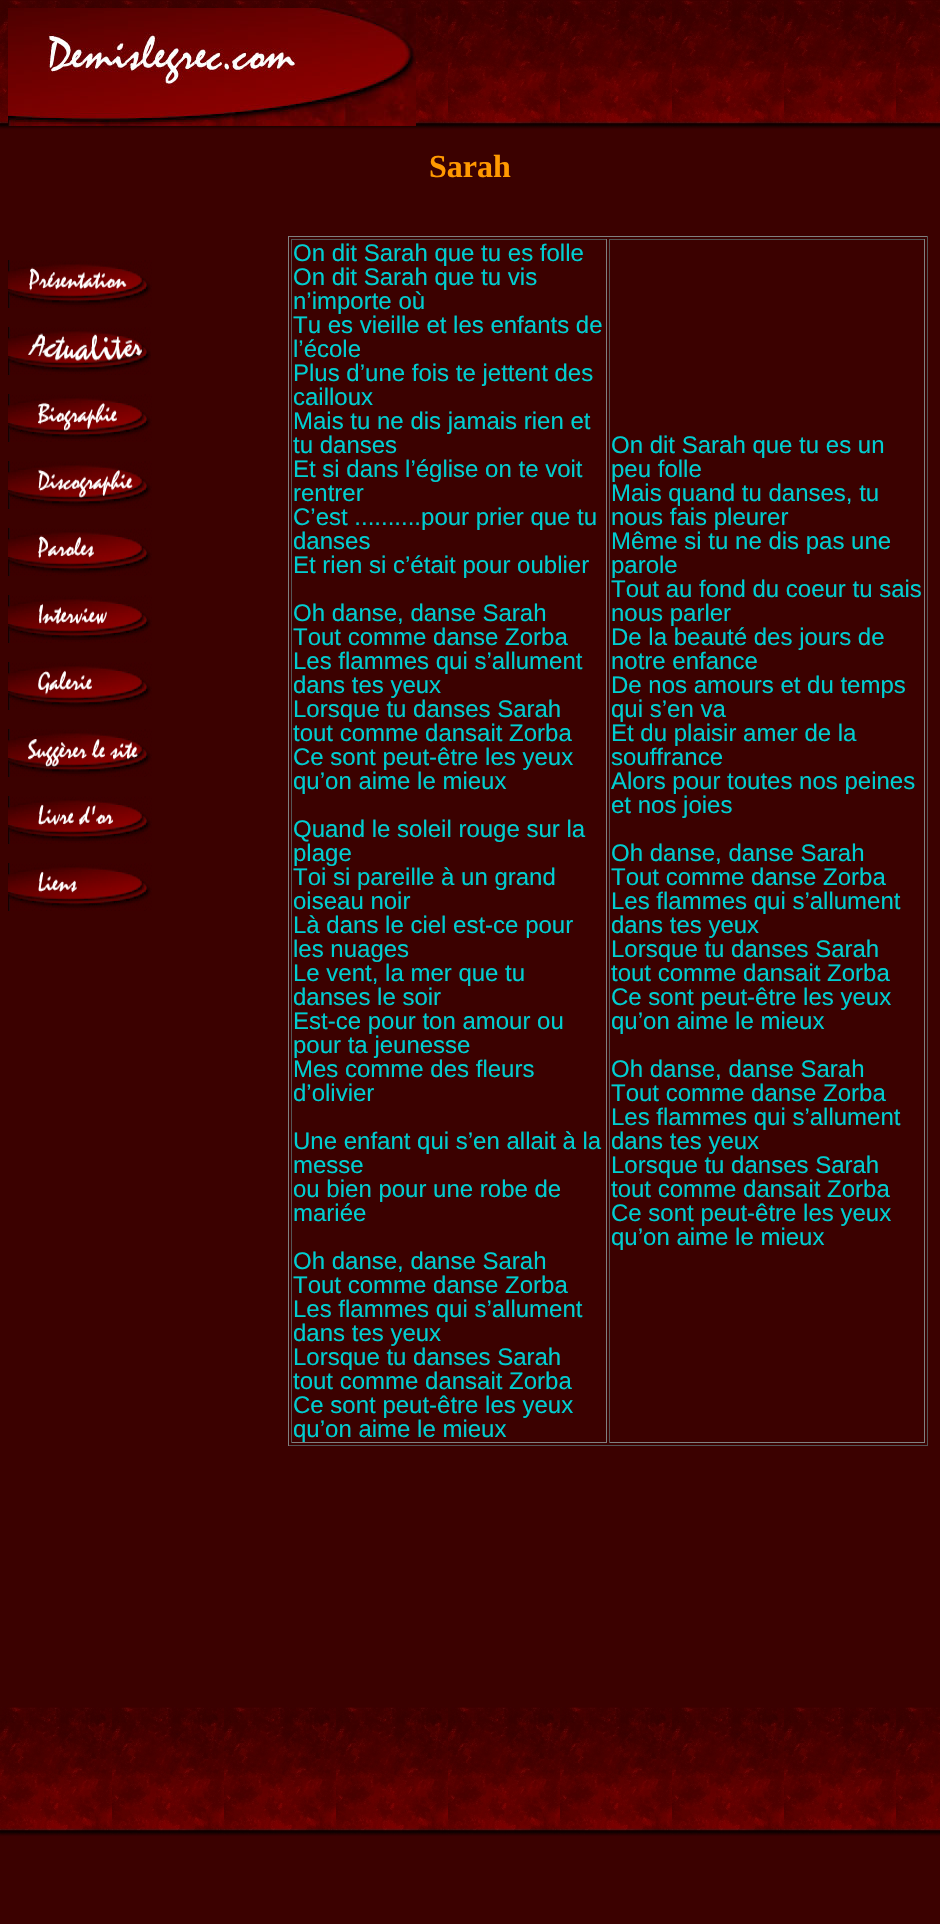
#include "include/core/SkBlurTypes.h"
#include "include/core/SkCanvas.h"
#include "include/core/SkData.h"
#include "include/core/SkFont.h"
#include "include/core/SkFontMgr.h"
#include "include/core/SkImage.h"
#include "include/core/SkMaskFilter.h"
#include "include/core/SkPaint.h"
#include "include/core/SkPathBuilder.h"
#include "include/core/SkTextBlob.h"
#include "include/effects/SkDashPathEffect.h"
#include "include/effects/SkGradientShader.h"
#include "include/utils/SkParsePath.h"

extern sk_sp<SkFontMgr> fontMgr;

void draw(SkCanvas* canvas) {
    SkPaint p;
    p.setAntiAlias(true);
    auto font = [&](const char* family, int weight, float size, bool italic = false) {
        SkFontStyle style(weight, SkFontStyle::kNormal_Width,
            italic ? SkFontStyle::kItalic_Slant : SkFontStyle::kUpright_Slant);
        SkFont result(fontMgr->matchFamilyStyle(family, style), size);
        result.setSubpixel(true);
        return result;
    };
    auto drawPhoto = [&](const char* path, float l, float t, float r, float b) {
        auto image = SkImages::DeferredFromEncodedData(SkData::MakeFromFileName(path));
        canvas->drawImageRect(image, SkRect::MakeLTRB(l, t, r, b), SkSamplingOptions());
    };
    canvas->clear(0xFFFFFFFF);
    drawPhoto("media/1.png", 0, 0, 940, 1924);
    drawPhoto("media/2.png", 8, 8, 416, 126);
    auto font1 = font("Liberation Serif", 700, 32);
    p.setColor(0xFFFF9900);
    canvas->drawString("Sarah", 429, 177, font1, p);
    drawPhoto("media/3.png", 8, 260, 152, 308);
    drawPhoto("media/4.png", 8, 327, 151, 375);
    drawPhoto("media/5.png", 8, 394, 152, 442);
    drawPhoto("media/6.png", 8, 461, 152, 509);
    drawPhoto("media/7.png", 8, 528, 152, 576);
    drawPhoto("media/8.png", 8, 595, 152, 643);
    drawPhoto("media/9.png", 8, 662, 152, 710);
    drawPhoto("media/10.png", 8, 729, 152, 777);
    drawPhoto("media/11.png", 8, 796, 152, 844);
    drawPhoto("media/12.png", 8, 863, 152, 911);
    {
        const struct { float l, t, r, b; SkColor color; } items[] = {
            {288, 236, 928, 237, 0xFF808080},
            {927, 236, 928, 1446, 0xFF555555},
            {288, 1445, 928, 1446, 0xFF555555},
            {288, 236, 289, 1446, 0xFF808080},
            {291, 239, 607, 240, 0xFF555555},
            {606, 239, 607, 1443, 0xFF808080},
            {291, 1442, 607, 1443, 0xFF808080},
            {291, 239, 292, 1443, 0xFF555555},
        };
        for (auto [l, t, r, b, color] : items) {
            p.setColor(color);
            canvas->drawRect(SkRect::MakeLTRB(l, t, r, b), p);
        }
    }
    auto font2 = font("Liberation Sans", 400, 24);
    p.setColor(0xFF00CED1);
    {
        const struct { const char* s; float x, y; } items[] = {
            {"On dit Sarah que tu es folle", 293, 261},
            {"On dit Sarah que tu vis", 293, 285},
            {"n’importe où", 293, 309},
            {"Tu es vieille et les enfants de", 293, 333},
            {"l’école", 293, 357},
            {"Plus d’une fois te jettent des", 293, 381},
            {"cailloux", 293, 405},
            {"Mais tu ne dis jamais rien et", 293, 429},
            {"tu danses", 293, 453},
            {"Et si dans l’église on te voit", 293, 477},
            {"rentrer", 293, 501},
            {"C’est ..........pour prier que tu", 293, 525},
            {"danses", 293, 549},
            {"Et rien si c’était pour oublier", 293, 573},
            {"Oh danse, danse Sarah", 293, 621},
            {"Tout comme danse Zorba", 293, 645},
            {"Les flammes qui s’allument", 293, 669},
            {"dans tes yeux", 293, 693},
            {"Lorsque tu danses Sarah", 293, 717},
            {"tout comme dansait Zorba", 293, 741},
            {"Ce sont peut-être les yeux", 293, 765},
            {"qu’on aime le mieux", 293, 789},
            {"Quand le soleil rouge sur la", 293, 837},
            {"plage", 293, 861},
            {"Toi si pareille à un grand", 293, 885},
            {"oiseau noir", 293, 909},
            {"Là dans le ciel est-ce pour", 293, 933},
            {"les nuages", 293, 957},
            {"Le vent, la mer que tu", 293, 981},
            {"danses le soir", 293, 1005},
            {"Est-ce pour ton amour ou", 293, 1029},
            {"pour ta jeunesse", 293, 1053},
            {"Mes comme des fleurs", 293, 1077},
            {"d’olivier", 293, 1101},
            {"Une enfant qui s’en allait à la", 293, 1149},
            {"messe", 293, 1173},
            {"ou bien pour une robe de", 293, 1197},
            {"mariée", 293, 1221},
            {"Oh danse, danse Sarah", 293, 1269},
            {"Tout comme danse Zorba", 293, 1293},
            {"Les flammes qui s’allument", 293, 1317},
            {"dans tes yeux", 293, 1341},
            {"Lorsque tu danses Sarah", 293, 1365},
            {"tout comme dansait Zorba", 293, 1389},
            {"Ce sont peut-être les yeux", 293, 1413},
            {"qu’on aime le mieux", 293, 1437},
        };
        for (auto [s, x, y] : items) {
            canvas->drawString(s, x, y, font2, p);
        }
    }
    {
        const struct { float l, t, r, b; SkColor color; } items[] = {
            {609, 239, 925, 240, 0xFF555555},
            {924, 239, 925, 1443, 0xFF808080},
            {609, 1442, 925, 1443, 0xFF808080},
            {609, 239, 610, 1443, 0xFF555555},
        };
        for (auto [l, t, r, b, color] : items) {
            p.setColor(color);
            canvas->drawRect(SkRect::MakeLTRB(l, t, r, b), p);
        }
    }
    p.setColor(0xFF00CED1);
    {
        const struct { const char* s; float x, y; } items[] = {
            {"On dit Sarah que tu es un", 611, 453},
            {"peu folle", 611, 477},
            {"Mais quand tu danses, tu", 611, 501},
            {"nous fais pleurer", 611, 525},
            {"Même si tu ne dis pas une", 611, 549},
            {"parole", 611, 573},
            {"Tout au fond du coeur tu sais", 611, 597},
            {"nous parler", 611, 621},
            {"De la beauté des jours de", 611, 645},
            {"notre enfance", 611, 669},
            {"De nos amours et du temps", 611, 693},
            {"qui s’en va", 611, 717},
            {"Et du plaisir amer de la", 611, 741},
            {"souffrance", 611, 765},
            {"Alors pour toutes nos peines", 611, 789},
            {"et nos joies", 611, 813},
            {"Oh danse, danse Sarah", 611, 861},
            {"Tout comme danse Zorba", 611, 885},
            {"Les flammes qui s’allument", 611, 909},
            {"dans tes yeux", 611, 933},
            {"Lorsque tu danses Sarah", 611, 957},
            {"tout comme dansait Zorba", 611, 981},
            {"Ce sont peut-être les yeux", 611, 1005},
            {"qu’on aime le mieux", 611, 1029},
            {"Oh danse, danse Sarah", 611, 1077},
            {"Tout comme danse Zorba", 611, 1101},
            {"Les flammes qui s’allument", 611, 1125},
            {"dans tes yeux", 611, 1149},
            {"Lorsque tu danses Sarah", 611, 1173},
            {"tout comme dansait Zorba", 611, 1197},
            {"Ce sont peut-être les yeux", 611, 1221},
            {"qu’on aime le mieux", 611, 1245},
        };
        for (auto [s, x, y] : items) {
            canvas->drawString(s, x, y, font2, p);
        }
    }
}
